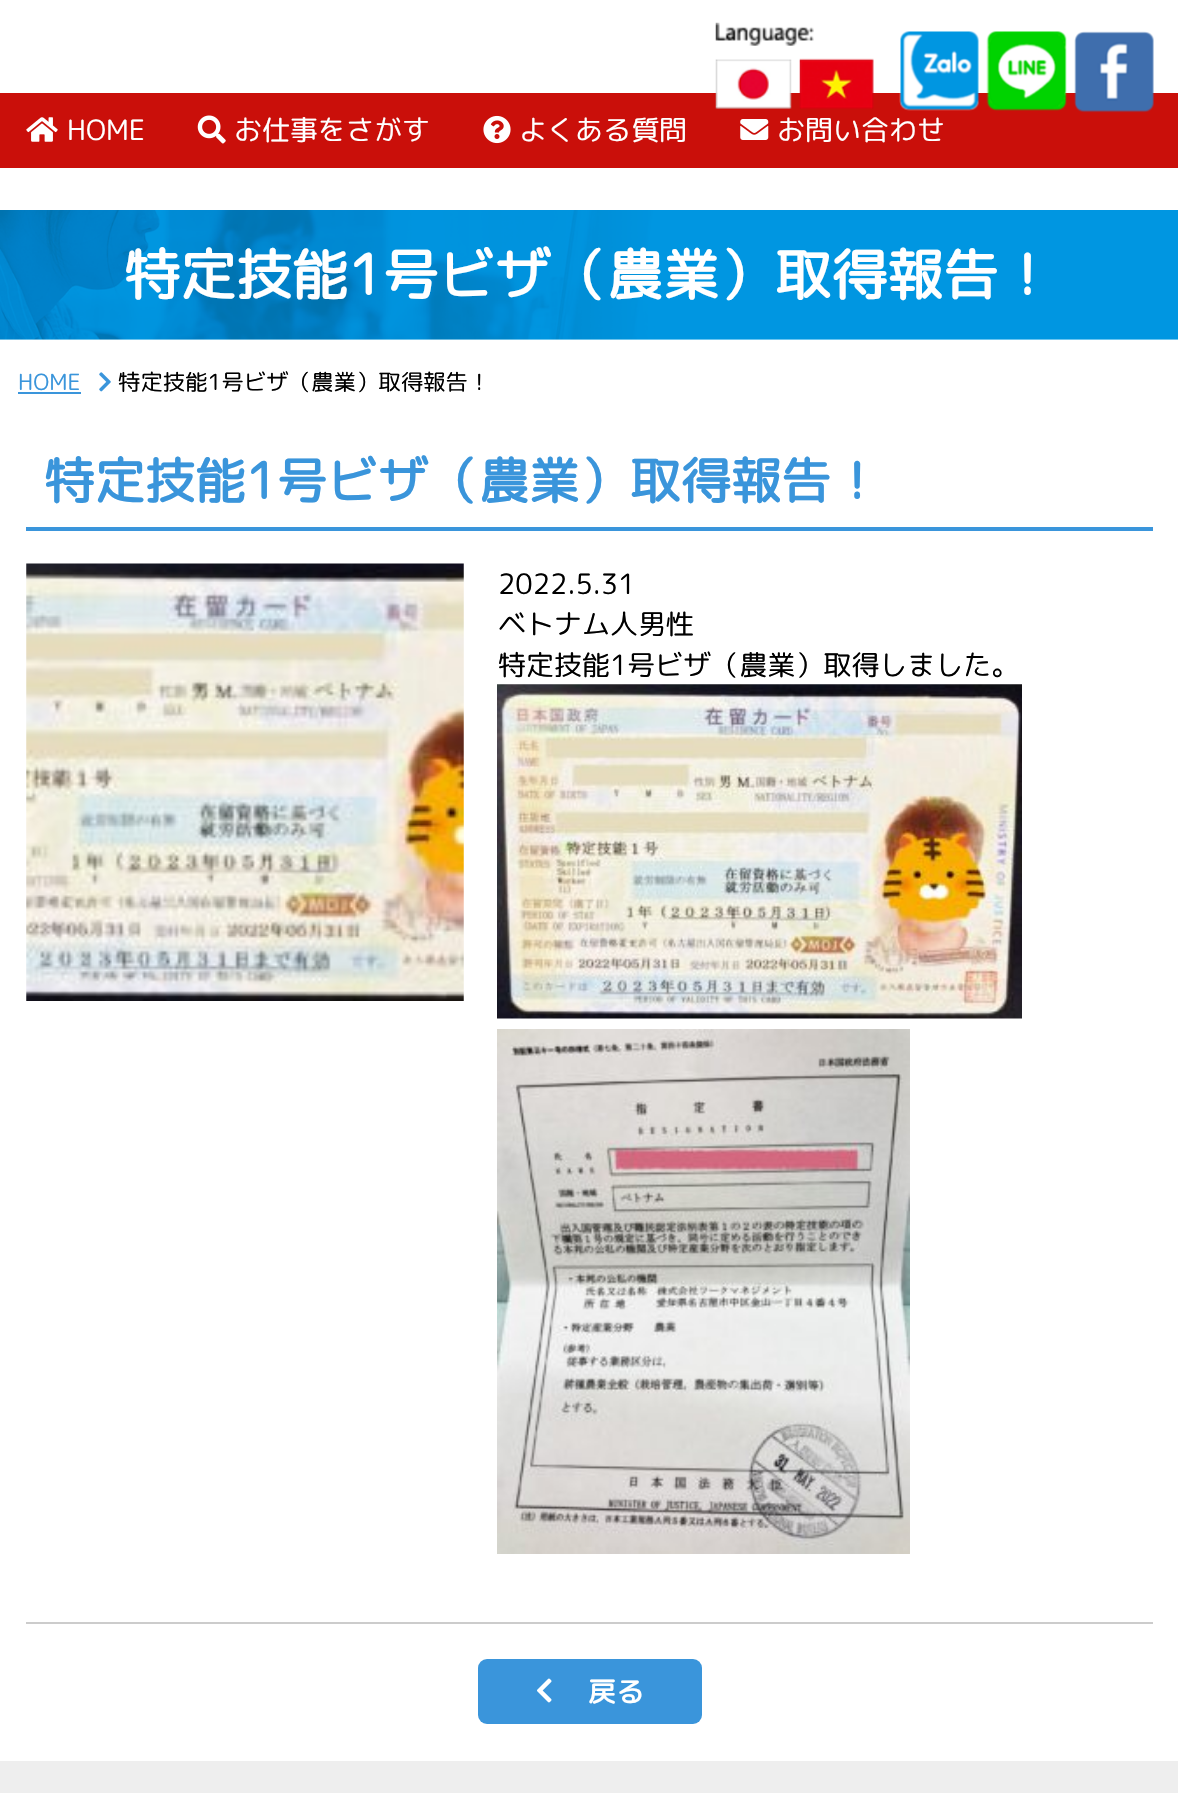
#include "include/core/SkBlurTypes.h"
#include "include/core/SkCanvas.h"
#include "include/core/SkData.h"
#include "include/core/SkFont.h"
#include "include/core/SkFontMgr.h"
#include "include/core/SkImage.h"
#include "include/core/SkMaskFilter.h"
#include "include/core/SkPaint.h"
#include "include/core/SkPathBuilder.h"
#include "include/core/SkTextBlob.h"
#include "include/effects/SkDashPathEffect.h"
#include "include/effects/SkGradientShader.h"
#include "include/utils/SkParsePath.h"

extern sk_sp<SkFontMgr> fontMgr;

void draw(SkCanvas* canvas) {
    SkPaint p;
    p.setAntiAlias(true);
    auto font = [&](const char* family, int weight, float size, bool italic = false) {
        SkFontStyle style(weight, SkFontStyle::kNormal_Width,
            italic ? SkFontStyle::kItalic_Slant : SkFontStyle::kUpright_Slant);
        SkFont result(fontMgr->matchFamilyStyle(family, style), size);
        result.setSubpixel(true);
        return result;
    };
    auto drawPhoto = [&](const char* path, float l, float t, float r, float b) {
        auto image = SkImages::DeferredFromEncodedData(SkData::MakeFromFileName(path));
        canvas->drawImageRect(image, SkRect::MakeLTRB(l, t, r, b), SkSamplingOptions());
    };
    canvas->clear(0xFFFFFFFF);
    drawPhoto("media/1.png", 715, 22, 814, 46);
    p.setColor(0xFFCA0F0A);
    canvas->drawRect(SkRect::MakeLTRB(0, 93, 1178, 168), p);
    drawPhoto("media/2.png", 715, 59, 792, 109);
    drawPhoto("media/3.png", 799, 58, 874, 109);
    drawPhoto("media/4.png", 899, 31, 979, 111);
    drawPhoto("media/5.png", 986, 31, 1067, 111);
    drawPhoto("media/6.png", 1074, 31, 1154, 113);
    drawPhoto("media/7.png", 26, 117, 58, 142);
    auto font1 = font("Rounded Mplus 1c", 400, 28);
    p.setColor(0xFFFFFFFF);
    canvas->drawString("HOME", 67, 140, font1, p);
    drawPhoto("media/8.png", 197, 115, 226, 144);
    canvas->drawString("お仕事をさがす", 234, 140, font1, p);
    drawPhoto("media/9.png", 483, 115, 511, 144);
    canvas->drawString("よくある質問", 519, 140, font1, p);
    drawPhoto("media/10.png", 740, 119, 769, 140);
    canvas->drawString("お問い合わせ", 777, 140, font1, p);
    p.setColor(0xFFD9F4FF);
    canvas->drawRect(SkRect::MakeLTRB(0, 339, 1178, 340), p);
    drawPhoto("media/11.png", 0, 210, 1178, 340);
    auto font2 = font("Rounded Mplus 1c", 700, 56);
    p.setColor(0xFFFFFFFF);
    canvas->drawString("特定技能1号ビザ（農業）取得報告！", 124, 295, font2, p);
    auto font3 = font("Rounded Mplus 1c", 400, 22.4f);
    p.setColor(0xFF3A95DB);
    canvas->drawString("HOME", 18, 390, font3, p);
    canvas->drawRect(SkRect::MakeLTRB(18, 392, 81, 394), p);
    drawPhoto("media/12.png", 99, 372, 111, 392);
    p.setColor(0xFF000000);
    canvas->drawString("特定技能1号ビザ（農業）取得報告！", 118, 390, font3, p);
    p.setColor(0xFFCCCCCC);
    canvas->drawRect(SkRect::MakeLTRB(26, 1622, 1153, 1624), p);
    p.setColor(0xFF3A95DB);
    canvas->drawRect(SkRect::MakeLTRB(26, 527, 1153, 531), p);
    auto font4 = font("Rounded Mplus 1c", 700, 50.4f);
    canvas->drawString("特定技能1号ビザ（農業）取得報告！", 44, 499, font4, p);
    drawPhoto("media/13.png", 26, 563, 464, 1001);
    p.setColor(0xFF000000);
    {
        const struct { const char* s; float x, y; } items[] = {
            {"2022.5.31", 498, 594},
            {"ベトナム人男性", 498, 634},
            {"特定技能1号ビザ（農業）取得しました。", 498, 675},
        };
        for (auto [s, x, y] : items) {
            canvas->drawString(s, x, y, font1, p);
        }
    }
    drawPhoto("media/14.png", 497, 684, 1022, 1019);
    drawPhoto("media/15.png", 497, 1029, 910, 1554);
    p.setColor(0xFF3A95DB);
    canvas->drawRoundRect(SkRect::MakeLTRB(478, 1659, 702, 1724), 9, 9, p);
    drawPhoto("media/16.png", 537, 1678, 552, 1703);
    auto font5 = font("Rounded Mplus 1c", 700, 28);
    p.setColor(0xFFFFFFFF);
    canvas->drawString("戻る", 588, 1702, font5, p);
    p.setColor(0xFFEEEEEE);
    canvas->drawRect(SkRect::MakeLTRB(0, 1761, 1178, 1793), p);
}
